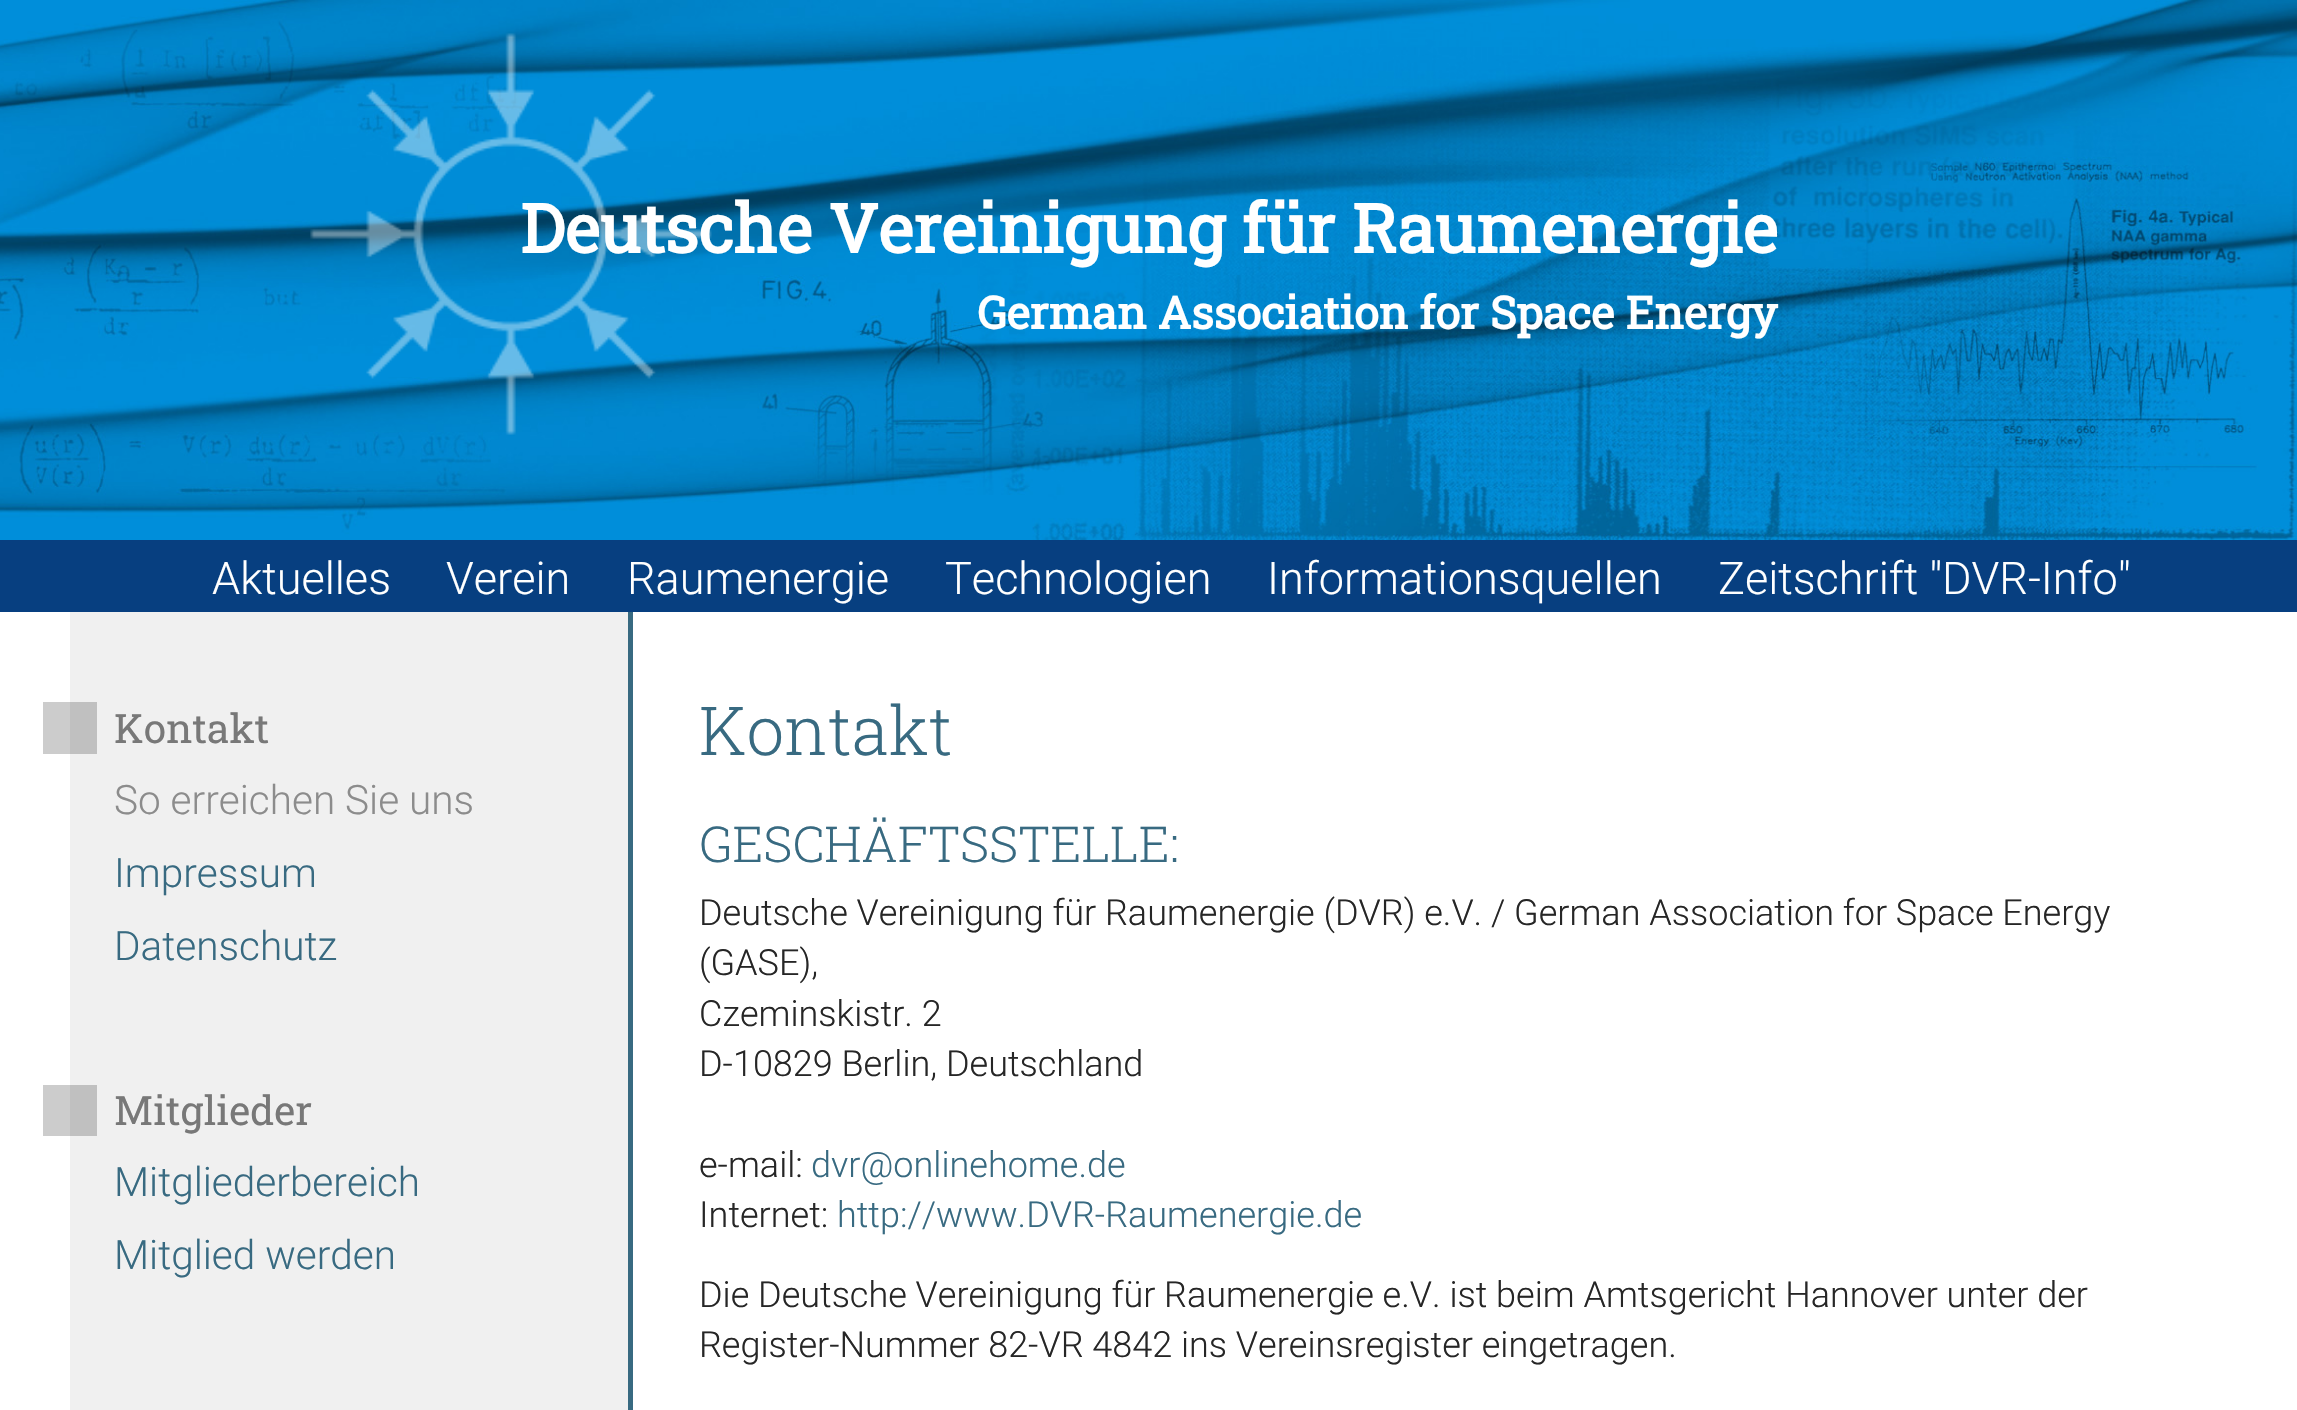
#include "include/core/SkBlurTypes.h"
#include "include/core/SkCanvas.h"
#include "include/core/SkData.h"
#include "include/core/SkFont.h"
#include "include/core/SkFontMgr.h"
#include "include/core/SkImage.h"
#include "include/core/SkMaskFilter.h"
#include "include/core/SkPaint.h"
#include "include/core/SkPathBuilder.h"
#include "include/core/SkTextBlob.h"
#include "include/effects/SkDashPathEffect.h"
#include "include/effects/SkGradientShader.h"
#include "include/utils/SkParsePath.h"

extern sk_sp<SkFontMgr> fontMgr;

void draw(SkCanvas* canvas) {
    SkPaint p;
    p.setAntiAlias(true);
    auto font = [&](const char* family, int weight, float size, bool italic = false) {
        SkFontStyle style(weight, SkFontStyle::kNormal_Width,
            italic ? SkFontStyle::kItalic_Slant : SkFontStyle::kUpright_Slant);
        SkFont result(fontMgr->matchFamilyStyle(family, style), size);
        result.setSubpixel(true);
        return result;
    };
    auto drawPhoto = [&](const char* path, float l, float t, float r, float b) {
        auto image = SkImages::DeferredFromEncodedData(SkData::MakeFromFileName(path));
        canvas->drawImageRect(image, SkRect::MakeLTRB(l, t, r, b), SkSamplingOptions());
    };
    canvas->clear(0xFFFFFFFF);
    {
        const struct { float l, t, r, b; SkColor color; } items[] = {
            {43, 1085, 70, 1136, 0xFFCCCCCC},
            {43, 702, 70, 754, 0xFFCCCCCC},
            {0, 540, 2297, 612, 0xFF073F80},
        };
        for (auto [l, t, r, b, color] : items) {
            p.setColor(color);
            canvas->drawRect(SkRect::MakeLTRB(l, t, r, b), p);
        }
    }
    drawPhoto("media/1.png", 0, 0, 2297, 540);
    drawPhoto("media/2.png", 310, 33, 712, 435);
    auto font1 = font("Roboto Slab", 700, 67.5f);
    p.setColor(0xFFFFFFFF);
    canvas->drawString("Deutsche Vereinigung für Raumenergie", 520, 253, font1, p);
    auto font2 = font("Roboto Slab", 700, 45);
    canvas->drawString("German Association for Space Energy", 977, 329, font2, p);
    auto font3 = font("Roboto", 300, 45);
    {
        const struct { const char* s; float x, y; } items[] = {
            {"Aktuelles", 212, 594},
            {"Verein", 446, 594},
            {"Raumenergie", 627, 594},
            {"Technologien", 945, 594},
            {"Informationsquellen", 1267, 594},
            {"Zeitschrift \"DVR-Info\"", 1718, 594},
        };
        for (auto [s, x, y] : items) {
            canvas->drawString(s, x, y, font3, p);
        }
    }
    {
        const struct { float l, t, r, b; SkColor color; } items[] = {
            {70, 612, 628, 1410, 0xFFF0F0F0},
            {70, 1085, 97, 1136, 0xFFC0C0C0},
            {70, 702, 97, 754, 0xFFC0C0C0},
            {628, 612, 633, 1410, 0xFF386A81},
        };
        for (auto [l, t, r, b, color] : items) {
            p.setColor(color);
            canvas->drawRect(SkRect::MakeLTRB(l, t, r, b), p);
        }
    }
    auto font4 = font("Roboto Slab", 400, 40.5f);
    p.setColor(0xFF787878);
    canvas->drawString("Kontakt", 114, 743, font4, p);
    auto font5 = font("Roboto", 300, 40.5f);
    p.setColor(0xFF8C8C8C);
    canvas->drawString("So erreichen Sie uns", 114, 814, font5, p);
    p.setColor(0xFF386A81);
    canvas->drawString("Impressum", 114, 887, font5, p);
    canvas->drawString("Datenschutz", 114, 960, font5, p);
    p.setColor(0xFF787878);
    canvas->drawString("Mitglieder", 114, 1125, font4, p);
    p.setColor(0xFF386A81);
    canvas->drawString("Mitgliederbereich", 114, 1196, font5, p);
    canvas->drawString("Mitglied werden", 114, 1269, font5, p);
    auto font6 = font("Roboto Slab", 300, 67.5f);
    canvas->drawString("Kontakt", 699, 755, font6, p);
    auto font7 = font("Roboto Slab", 300, 49.5f);
    canvas->drawString("GESCHÄFTSSTELLE:", 699, 862, font7, p);
    auto font8 = font("Roboto", 300, 36);
    p.setColor(0xFF262626);
    {
        const struct { const char* s; float x, y; } items[] = {
            {"Deutsche Vereinigung für Raumenergie (DVR) e.V. / German Association for Space Energy", 699, 925},
            {"(GASE),", 699, 975},
            {"Czeminskistr. 2", 699, 1026},
            {"D-10829 Berlin, Deutschland", 699, 1076},
            {"e-mail:", 699, 1177},
        };
        for (auto [s, x, y] : items) {
            canvas->drawString(s, x, y, font8, p);
        }
    }
    p.setColor(0xFF386A81);
    canvas->drawString("dvr@onlinehome.de", 811, 1177, font8, p);
    p.setColor(0xFF262626);
    canvas->drawString("Internet:", 699, 1227, font8, p);
    p.setColor(0xFF386A81);
    canvas->drawString("http://www.DVR-Raumenergie.de", 837, 1227, font8, p);
    p.setColor(0xFF262626);
    canvas->drawString("Die Deutsche Vereinigung für Raumenergie e.V. ist beim Amtsgericht Hannover unter der", 699, 1307, font8, p);
    canvas->drawString("Register-Nummer 82-VR 4842 ins Vereinsregister eingetragen.", 699, 1357, font8, p);
}
